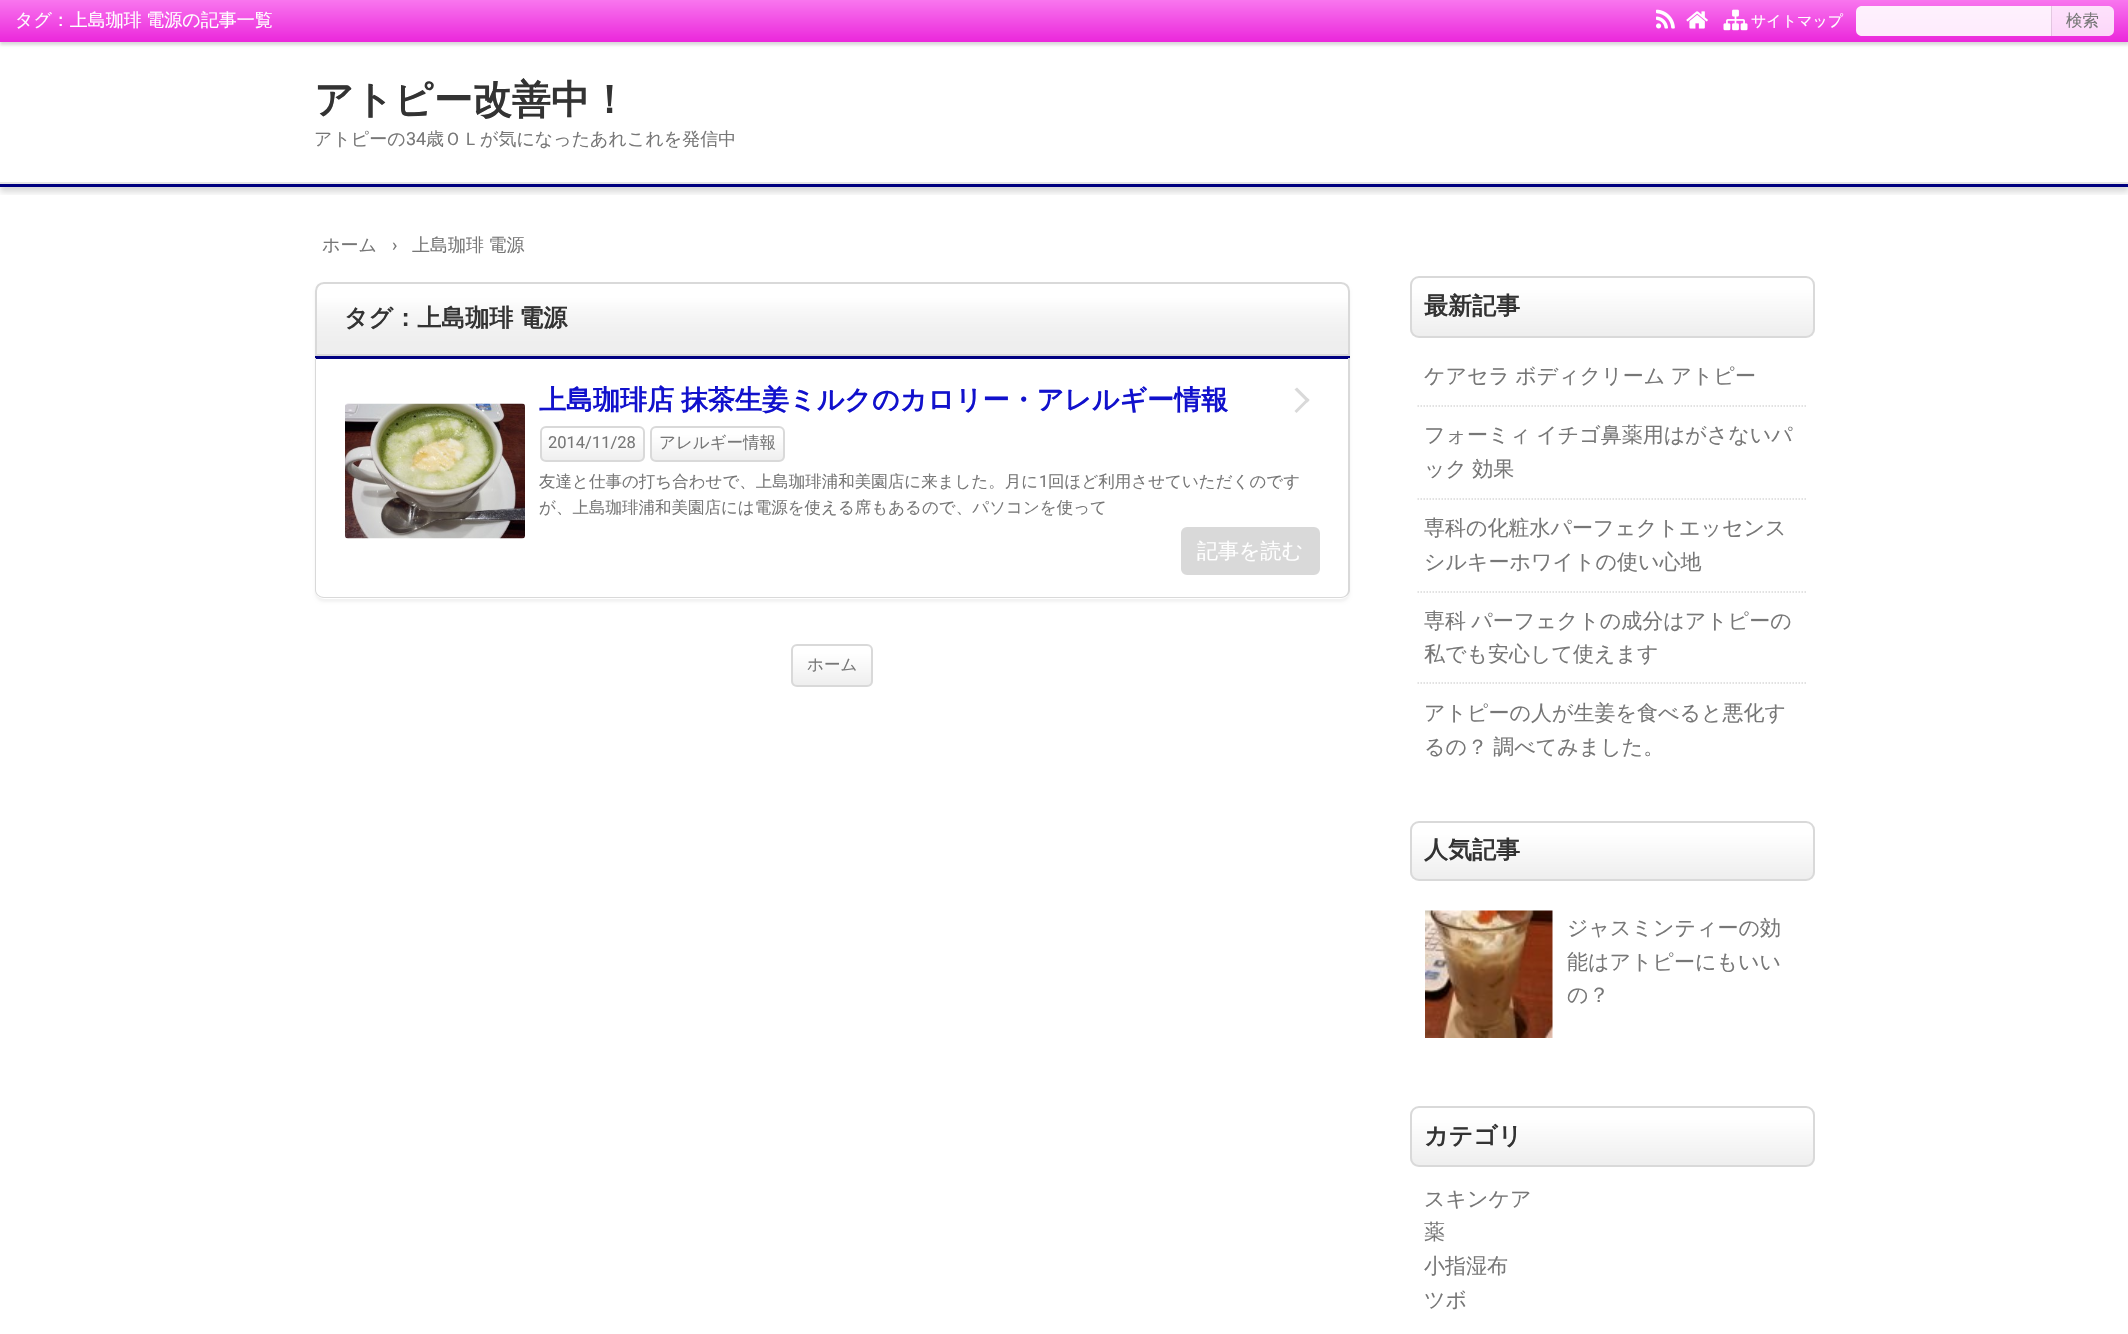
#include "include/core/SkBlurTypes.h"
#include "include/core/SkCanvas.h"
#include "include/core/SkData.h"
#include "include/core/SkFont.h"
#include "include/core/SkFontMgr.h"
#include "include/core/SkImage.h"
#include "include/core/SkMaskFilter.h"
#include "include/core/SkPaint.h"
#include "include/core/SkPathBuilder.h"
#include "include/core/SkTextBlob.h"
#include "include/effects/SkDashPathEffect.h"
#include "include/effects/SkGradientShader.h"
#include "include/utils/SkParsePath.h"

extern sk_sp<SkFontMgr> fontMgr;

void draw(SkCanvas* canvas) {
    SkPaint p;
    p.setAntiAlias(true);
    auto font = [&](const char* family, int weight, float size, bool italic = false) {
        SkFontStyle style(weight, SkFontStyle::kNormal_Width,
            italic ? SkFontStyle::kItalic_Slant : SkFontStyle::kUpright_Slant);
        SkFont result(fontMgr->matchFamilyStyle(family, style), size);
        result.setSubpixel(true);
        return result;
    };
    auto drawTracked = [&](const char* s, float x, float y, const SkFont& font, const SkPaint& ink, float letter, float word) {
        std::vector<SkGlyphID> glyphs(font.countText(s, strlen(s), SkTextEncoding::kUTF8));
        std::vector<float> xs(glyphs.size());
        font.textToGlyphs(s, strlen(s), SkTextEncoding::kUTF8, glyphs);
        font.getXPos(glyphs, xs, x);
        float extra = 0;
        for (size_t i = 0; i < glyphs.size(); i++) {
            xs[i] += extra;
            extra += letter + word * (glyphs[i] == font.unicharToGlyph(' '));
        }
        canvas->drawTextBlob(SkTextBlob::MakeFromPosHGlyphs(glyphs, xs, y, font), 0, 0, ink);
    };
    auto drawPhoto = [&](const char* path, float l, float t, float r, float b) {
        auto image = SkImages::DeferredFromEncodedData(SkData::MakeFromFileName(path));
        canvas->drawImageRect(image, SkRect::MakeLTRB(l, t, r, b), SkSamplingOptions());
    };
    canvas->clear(0xFFFFFFFF);
    canvas->save();
    canvas->clipRect(SkRect::MakeLTRB(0, 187, 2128, 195));
    p.setColor(0x26000000);
    p.setMaskFilter(SkMaskFilter::MakeBlur(kNormal_SkBlurStyle, 3));
    canvas->drawRect(SkRect::MakeLTRB(0, 6, 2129, 192), p);
    p.setMaskFilter(nullptr);
    canvas->restore();
    p.setColor(0xFF000080);
    canvas->drawRect(SkRect::MakeLTRB(0, 184, 2128, 187), p);
    p.setColor(0x26000000);
    p.setMaskFilter(SkMaskFilter::MakeBlur(kNormal_SkBlurStyle, 1.5f));
    canvas->drawRect(SkRect::MakeLTRB(0, 3, 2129, 45), p);
    p.setMaskFilter(nullptr);
    {
        const SkColor colors[] = {0xFFF876EE, 0xFFEB27DB};
        const float stops[] = {0, 1};
        const SkPoint ends[] = {{1064, 0}, {1064, 42}};
        p.setShader(SkGradientShader::MakeLinear(ends, colors, stops, 2, SkTileMode::kClamp));
        p.setAlpha(255);
    }
    canvas->drawRect(SkRect::MakeLTRB(0, 0, 2128, 42), p);
    auto font1 = font("WenQuanYi Zen Hei", 500, 18);
    p.setShader(nullptr);
    p.setColor(0xFFFFFFFF);
    drawTracked("タグ：上島珈琲 電源の記事一覧", 15, 26, font1, p, 0, -1);
    drawPhoto("media/1.png", 1656, 9, 1675, 29);
    drawPhoto("media/2.png", 1686, 11, 1708, 29);
    drawPhoto("media/3.png", 1723, 9, 1748, 31);
    auto font2 = font("WenQuanYi Zen Hei", 500, 15);
    canvas->drawString("サイトマップ", 1751, 26, font2, p);
    p.setColor(0xE6FFFFFF);
    canvas->drawPath(SkPathBuilder().moveTo(1862, 6).lineTo(2051, 6).lineTo(2051, 36).lineTo(1862, 36).cubicTo(1858.5f, 36, 1856, 33.5f, 1856, 30).lineTo(1856, 12).cubicTo(1856, 8.5f, 1858.5f, 6, 1862, 6).close().detach(), p);
    p.setColor(0xCCFFFFFF);
    canvas->drawPath(SkPathBuilder().moveTo(2051, 6).lineTo(2108, 6).cubicTo(2111.5f, 6, 2114, 8.5f, 2114, 12).lineTo(2114, 30).cubicTo(2114, 33.5f, 2111.5f, 36, 2108, 36).lineTo(2051, 36).close().detach(), p);
    p.setColor(0x1A000000);
    canvas->drawRect(SkRect::MakeLTRB(2051, 6, 2052, 36), p);
    auto font3 = font("WenQuanYi Zen Hei", 500, 16.5f);
    p.setColor(0xFF777777);
    canvas->drawString("検索", 2066, 26, font3, p);
    auto font4 = font("WenQuanYi Zen Hei", 700, 39);
    p.setColor(0xFF333333);
    canvas->drawString("アトピー改善中！", 314, 113, font4, p);
    p.setColor(0xFF777777);
    canvas->drawString("アトピーの", 314, 145, font1, p);
    auto font5 = font("Roboto", 400, 18);
    canvas->drawString("34", 406, 145, font5, p);
    canvas->drawString("歳ＯＬが気になったあれこれを発信中", 426, 145, font1, p);
    p.setColor(0xFFE6E6E6);
    canvas->drawRect(SkRect::MakeLTRB(0, 182, 2128, 184), p);
    p.setColor(0xFF777777);
    canvas->drawString("ホーム", 322, 251, font1, p);
    canvas->drawString("›", 392, 251, font5, p);
    drawTracked("上島珈琲 電源", 412, 251, font1, p, 0, -1);
    p.setColor(0x0D000000);
    p.setMaskFilter(SkMaskFilter::MakeBlur(kNormal_SkBlurStyle, 1.5f));
    canvas->drawRoundRect(SkRect::MakeLTRB(315, 285, 1350, 602), 9, 9, p);
    p.setMaskFilter(nullptr);
    p.setColor(0xFFFFFFFF);
    canvas->drawRoundRect(SkRect::MakeLTRB(315, 282, 1350, 599), 9, 9, p);
    p.setColor(0xFF000080);
    canvas->drawRect(SkRect::MakeLTRB(315, 356, 1350, 359), p);
    canvas->save();
    canvas->clipPath(SkPathBuilder().moveTo(324, 282).lineTo(1341, 282).cubicTo(1346, 282, 1350, 286, 1350, 291).lineTo(1350, 356).lineTo(315, 356).lineTo(315, 291).cubicTo(315, 286, 319, 282, 324, 282).close().detach(), true);
    {
        const SkColor colors[] = {0x33FFFFFF, 0x1A555555};
        const float stops[] = {0.2f, 1};
        const SkPoint ends[] = {{833, 283}, {833, 354}};
        p.setShader(SkGradientShader::MakeLinear(ends, colors, stops, 2, SkTileMode::kClamp));
        p.setAlpha(255);
    }
    canvas->drawRect(SkRect::MakeLTRB(315, 284, 1350, 354), p);
    canvas->restore();
    p.setStyle(SkPaint::kStroke_Style);
    p.setStrokeWidth(2);
    p.setShader(nullptr);
    p.setColor(0xFFD9D9D9);
    canvas->drawPath(SkPathBuilder().moveTo(324, 283).lineTo(1341, 283).cubicTo(1345.5f, 283, 1349, 286.5f, 1349, 291).lineTo(1349, 355).lineTo(316, 355).lineTo(316, 291).cubicTo(316, 286.5f, 319.5f, 283, 324, 283).close().detach(), p);
    auto font6 = font("WenQuanYi Zen Hei", 700, 24);
    p.setStyle(SkPaint::kFill_Style);
    p.setColor(0xFF333333);
    drawTracked("タグ：上島珈琲 電源", 344, 326, font6, p, 0, -1);
    p.setColor(0xFFD9D9D9);
    canvas->drawPath(SkPathBuilder(SkPathFillType::kEvenOdd).moveTo(315, 358).lineTo(1350, 358).lineTo(1350, 590).cubicTo(1350, 594, 1346, 598, 1341, 598).lineTo(324, 598).cubicTo(319, 598, 315, 594, 315, 590).close().moveTo(316, 358).lineTo(1348, 358).lineTo(1348, 590).cubicTo(1348, 594, 1345, 597, 1341, 597).lineTo(324, 597).cubicTo(320, 597, 316, 594, 316, 590).close().detach(), p);
    drawPhoto("media/4.png", 345, 403, 525, 539);
    auto font7 = font("WenQuanYi Zen Hei", 700, 27);
    p.setColor(0xFF1111CC);
    drawTracked("上島珈琲店 抹茶生姜ミルクのカロリー・アレルギー情報", 539, 409, font7, p, 0, -1);
    p.setColor(0xFFD9D9D9);
    canvas->drawPath(SkPathBuilder().moveTo(1294.5f, 389.5f).lineTo(1297, 387.5f).lineTo(1309.5f, 400).lineTo(1307.5f, 402.5f).close().detach(), p);
    canvas->drawPath(SkPathBuilder().moveTo(1294.5f, 411).lineTo(1307.5f, 398).lineTo(1309.5f, 400).lineTo(1296.5f, 413).close().detach(), p);
    canvas->save();
    canvas->clipPath(SkPathBuilder().moveTo(546, 426).lineTo(639, 426).cubicTo(642.5f, 426, 645, 428.5f, 645, 432).lineTo(645, 456).cubicTo(645, 459.5f, 642.5f, 462, 639, 462).lineTo(546, 462).cubicTo(542.5f, 462, 540, 459.5f, 540, 456).lineTo(540, 432).cubicTo(540, 428.5f, 542.5f, 426, 546, 426).close().detach(), true);
    {
        const SkColor colors[] = {0xFFFFFFFF, 0xFFEEEEEE};
        const float stops[] = {0.2f, 1};
        const SkPoint ends[] = {{593, 428}, {593, 461}};
        p.setShader(SkGradientShader::MakeLinear(ends, colors, stops, 2, SkTileMode::kClamp));
        p.setAlpha(255);
    }
    canvas->drawRect(SkRect::MakeLTRB(540, 428, 645, 461), p);
    canvas->restore();
    p.setStyle(SkPaint::kStroke_Style);
    p.setShader(nullptr);
    p.setColor(0xFFD9D9D9);
    canvas->drawRoundRect(SkRect::MakeLTRB(541, 427, 644, 461), 5, 5, p);
    auto font8 = font("Roboto", 400, 16.5f);
    p.setStyle(SkPaint::kFill_Style);
    p.setColor(0xFF777777);
    canvas->drawString("2014/11/28", 548, 448, font8, p);
    canvas->save();
    canvas->clipPath(SkPathBuilder().moveTo(656, 426).lineTo(779, 426).cubicTo(782.5f, 426, 785, 428.5f, 785, 432).lineTo(785, 456).cubicTo(785, 459.5f, 782.5f, 462, 779, 462).lineTo(656, 462).cubicTo(652.5f, 462, 650, 459.5f, 650, 456).lineTo(650, 432).cubicTo(650, 428.5f, 652.5f, 426, 656, 426).close().detach(), true);
    {
        const SkColor colors[] = {0xFFFFFFFF, 0xFFEEEEEE};
        const float stops[] = {0.2f, 1};
        const SkPoint ends[] = {{717, 428}, {717, 461}};
        p.setShader(SkGradientShader::MakeLinear(ends, colors, stops, 2, SkTileMode::kClamp));
        p.setAlpha(255);
    }
    canvas->drawRect(SkRect::MakeLTRB(650, 428, 785, 461), p);
    canvas->restore();
    p.setStyle(SkPaint::kStroke_Style);
    p.setShader(nullptr);
    p.setColor(0xFFD9D9D9);
    canvas->drawRoundRect(SkRect::MakeLTRB(651, 427, 784, 461), 5, 5, p);
    p.setStyle(SkPaint::kFill_Style);
    p.setColor(0xFF777777);
    canvas->drawString("アレルギー情報", 659, 448, font3, p);
    canvas->drawString("友達と仕事の打ち合わせで、上島珈琲浦和美園店に来ました。月に", 539, 487, font3, p);
    canvas->drawString("1", 1039, 487, font8, p);
    canvas->drawString("回ほど利用させていただくのです", 1048, 487, font3, p);
    canvas->drawString("が、上島珈琲浦和美園店には電源を使える席もあるので、パソコンを使って", 539, 513, font3, p);
    p.setColor(0xFFD9D9D9);
    canvas->drawRoundRect(SkRect::MakeLTRB(1182, 528, 1319, 574), 5, 5, p);
    p.setStyle(SkPaint::kStroke_Style);
    canvas->drawRoundRect(SkRect::MakeLTRB(1182, 528, 1319, 574), 5, 5, p);
    auto font9 = font("WenQuanYi Zen Hei", 500, 21);
    p.setStyle(SkPaint::kFill_Style);
    p.setColor(0xFFFFFFFF);
    canvas->drawString("記事を読む", 1197, 558, font9, p);
    canvas->save();
    canvas->clipPath(SkPathBuilder().moveTo(797, 644).lineTo(867, 644).cubicTo(870.5f, 644, 873, 646.5f, 873, 650).lineTo(873, 681).cubicTo(873, 684.5f, 870.5f, 687, 867, 687).lineTo(797, 687).cubicTo(793.5f, 687, 791, 684.5f, 791, 681).lineTo(791, 650).cubicTo(791, 646.5f, 793.5f, 644, 797, 644).close().detach(), true);
    {
        const SkColor colors[] = {0xFFFFFFFF, 0xFFEEEEEE};
        const float stops[] = {0.2f, 1};
        const SkPoint ends[] = {{832, 645}, {832, 686}};
        p.setShader(SkGradientShader::MakeLinear(ends, colors, stops, 2, SkTileMode::kClamp));
        p.setAlpha(255);
    }
    canvas->drawRect(SkRect::MakeLTRB(791, 645, 873, 686), p);
    canvas->restore();
    p.setStyle(SkPaint::kStroke_Style);
    p.setShader(nullptr);
    p.setColor(0xFFD9D9D9);
    canvas->drawRoundRect(SkRect::MakeLTRB(792, 645, 872, 686), 5, 5, p);
    p.setStyle(SkPaint::kFill_Style);
    p.setColor(0xFF777777);
    canvas->drawString("ホーム", 807, 670, font3, p);
    canvas->save();
    canvas->clipPath(SkPathBuilder().moveTo(1419, 276).lineTo(1806, 276).cubicTo(1811, 276, 1815, 280, 1815, 285).lineTo(1815, 329).cubicTo(1815, 334, 1811, 338, 1806, 338).lineTo(1419, 338).cubicTo(1414, 338, 1410, 334, 1410, 329).lineTo(1410, 285).cubicTo(1410, 280, 1414, 276, 1419, 276).close().detach(), true);
    {
        const SkColor colors[] = {0xFFFFFFFF, 0xFFEEEEEE};
        const float stops[] = {0.2f, 1};
        const SkPoint ends[] = {{1613, 277}, {1613, 336}};
        p.setShader(SkGradientShader::MakeLinear(ends, colors, stops, 2, SkTileMode::kClamp));
        p.setAlpha(255);
    }
    canvas->drawRect(SkRect::MakeLTRB(1410, 278, 1815, 336), p);
    canvas->restore();
    p.setStyle(SkPaint::kStroke_Style);
    p.setShader(nullptr);
    p.setColor(0xFFD9D9D9);
    canvas->drawRoundRect(SkRect::MakeLTRB(1411, 277, 1814, 337), 8, 8, p);
    p.setStyle(SkPaint::kFill_Style);
    p.setColor(0xFF333333);
    canvas->drawString("最新記事", 1424, 314, font6, p);
    p.setStyle(SkPaint::kStroke_Style);
    p.setStrokeWidth(1.5f);
    p.setColor(0xFFD9D9D9);
    p.setPathEffect(SkDashPathEffect::Make({{1.5f, 1.5f}}, 0));
    canvas->drawPath(SkPathBuilder().moveTo(1417.5f, 406).lineTo(1807.5f, 406).detach(), p);
    p.setPathEffect(nullptr);
    p.setStyle(SkPaint::kFill_Style);
    p.setColor(0xFF777777);
    drawTracked("ケアセラ ボディクリーム アトピー", 1424, 383, font9, p, 0, -1);
    p.setStyle(SkPaint::kStroke_Style);
    p.setColor(0xFFD9D9D9);
    p.setPathEffect(SkDashPathEffect::Make({{1.5f, 1.5f}}, 0));
    canvas->drawPath(SkPathBuilder().moveTo(1417.5f, 499).lineTo(1807.5f, 499).detach(), p);
    p.setPathEffect(nullptr);
    p.setStyle(SkPaint::kFill_Style);
    p.setColor(0xFF777777);
    drawTracked("フォーミィ イチゴ鼻薬用はがさないパ", 1424, 442, font9, p, 0, -1);
    drawTracked("ック 効果", 1424, 476, font9, p, 0, -1);
    p.setStyle(SkPaint::kStroke_Style);
    p.setColor(0xFFD9D9D9);
    p.setPathEffect(SkDashPathEffect::Make({{1.5f, 1.5f}}, 0));
    canvas->drawPath(SkPathBuilder().moveTo(1417.5f, 592).lineTo(1807.5f, 592).detach(), p);
    p.setPathEffect(nullptr);
    p.setStyle(SkPaint::kFill_Style);
    p.setColor(0xFF777777);
    canvas->drawString("専科の化粧水パーフェクトエッセンス", 1424, 535, font9, p);
    canvas->drawString("シルキーホワイトの使い心地", 1424, 569, font9, p);
    p.setStyle(SkPaint::kStroke_Style);
    p.setColor(0xFFD9D9D9);
    p.setPathEffect(SkDashPathEffect::Make({{1.5f, 1.5f}}, 0));
    canvas->drawPath(SkPathBuilder().moveTo(1417.5f, 683).lineTo(1807.5f, 683).detach(), p);
    p.setPathEffect(nullptr);
    p.setStyle(SkPaint::kFill_Style);
    p.setColor(0xFF777777);
    drawTracked("専科 パーフェクトの成分はアトピーの", 1424, 628, font9, p, 0, -1);
    canvas->drawString("私でも安心して使えます", 1424, 661, font9, p);
    canvas->drawString("アトピーの人が生姜を食べると悪化す", 1424, 720, font9, p);
    drawTracked("るの？ 調べてみました。", 1424, 754, font9, p, 0, -1);
    canvas->save();
    canvas->clipPath(SkPathBuilder().moveTo(1419, 821).lineTo(1806, 821).cubicTo(1811, 821, 1815, 825, 1815, 830).lineTo(1815, 872).cubicTo(1815, 877, 1811, 881, 1806, 881).lineTo(1419, 881).cubicTo(1414, 881, 1410, 877, 1410, 872).lineTo(1410, 830).cubicTo(1410, 825, 1414, 821, 1419, 821).close().detach(), true);
    {
        const SkColor colors[] = {0xFFFFFFFF, 0xFFEEEEEE};
        const float stops[] = {0.2f, 1};
        const SkPoint ends[] = {{1613, 822}, {1613, 879}};
        p.setShader(SkGradientShader::MakeLinear(ends, colors, stops, 2, SkTileMode::kClamp));
        p.setAlpha(255);
    }
    canvas->drawRect(SkRect::MakeLTRB(1410, 822, 1815, 879), p);
    canvas->restore();
    p.setStyle(SkPaint::kStroke_Style);
    p.setStrokeWidth(2);
    p.setShader(nullptr);
    p.setColor(0xFFD9D9D9);
    canvas->drawRoundRect(SkRect::MakeLTRB(1411, 822, 1814, 880), 8, 8, p);
    p.setStyle(SkPaint::kFill_Style);
    p.setColor(0xFF333333);
    canvas->drawString("人気記事", 1424, 858, font6, p);
    drawPhoto("media/5.png", 1425, 910, 1553, 1038);
    p.setColor(0xFF777777);
    {
        const struct { const char* s; float x, y; } items[] = {
            {"ジャスミンティーの効", 1567, 935},
            {"能はアトピーにもいい", 1567, 969},
            {"の？", 1567, 1002},
        };
        for (auto [s, x, y] : items) {
            canvas->drawString(s, x, y, font9, p);
        }
    }
    canvas->save();
    canvas->clipPath(SkPathBuilder().moveTo(1419, 1106).lineTo(1806, 1106).cubicTo(1811, 1106, 1815, 1110, 1815, 1115).lineTo(1815, 1158).cubicTo(1815, 1163, 1811, 1167, 1806, 1167).lineTo(1419, 1167).cubicTo(1414, 1167, 1410, 1163, 1410, 1158).lineTo(1410, 1115).cubicTo(1410, 1110, 1414, 1106, 1419, 1106).close().detach(), true);
    {
        const SkColor colors[] = {0xFFFFFFFF, 0xFFEEEEEE};
        const float stops[] = {0.2f, 1};
        const SkPoint ends[] = {{1613, 1107}, {1613, 1166}};
        p.setShader(SkGradientShader::MakeLinear(ends, colors, stops, 2, SkTileMode::kClamp));
        p.setAlpha(255);
    }
    canvas->drawRect(SkRect::MakeLTRB(1410, 1107, 1815, 1166), p);
    canvas->restore();
    p.setStyle(SkPaint::kStroke_Style);
    p.setShader(nullptr);
    p.setColor(0xFFD9D9D9);
    canvas->drawRoundRect(SkRect::MakeLTRB(1411, 1107, 1814, 1166), 8, 8, p);
    p.setStyle(SkPaint::kFill_Style);
    p.setColor(0xFF333333);
    canvas->drawString("カテゴリ", 1424, 1144, font6, p);
    p.setColor(0xFF777777);
    {
        const struct { const char* s; float x, y; } items[] = {
            {"スキンケア", 1424, 1206},
            {"薬", 1424, 1239},
            {"小指湿布", 1424, 1273},
            {"ツボ", 1424, 1307},
        };
        for (auto [s, x, y] : items) {
            canvas->drawString(s, x, y, font9, p);
        }
    }
}
